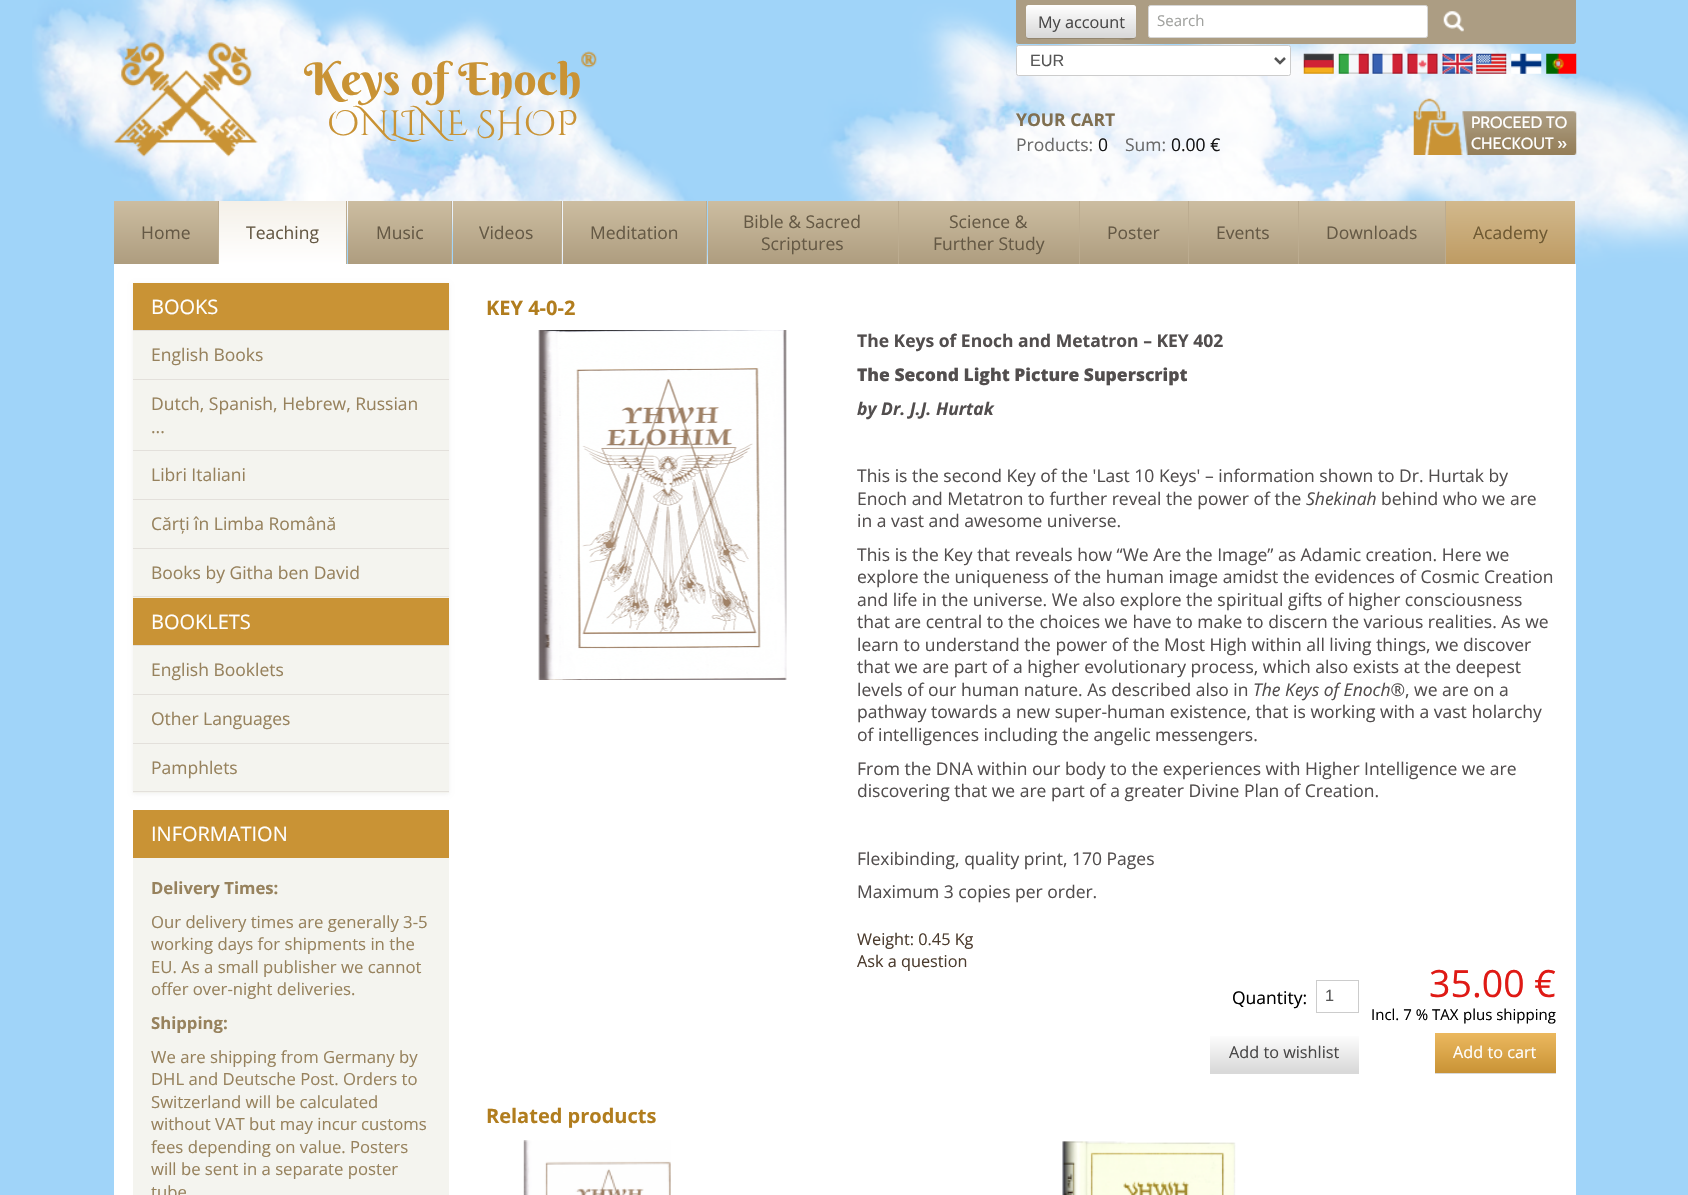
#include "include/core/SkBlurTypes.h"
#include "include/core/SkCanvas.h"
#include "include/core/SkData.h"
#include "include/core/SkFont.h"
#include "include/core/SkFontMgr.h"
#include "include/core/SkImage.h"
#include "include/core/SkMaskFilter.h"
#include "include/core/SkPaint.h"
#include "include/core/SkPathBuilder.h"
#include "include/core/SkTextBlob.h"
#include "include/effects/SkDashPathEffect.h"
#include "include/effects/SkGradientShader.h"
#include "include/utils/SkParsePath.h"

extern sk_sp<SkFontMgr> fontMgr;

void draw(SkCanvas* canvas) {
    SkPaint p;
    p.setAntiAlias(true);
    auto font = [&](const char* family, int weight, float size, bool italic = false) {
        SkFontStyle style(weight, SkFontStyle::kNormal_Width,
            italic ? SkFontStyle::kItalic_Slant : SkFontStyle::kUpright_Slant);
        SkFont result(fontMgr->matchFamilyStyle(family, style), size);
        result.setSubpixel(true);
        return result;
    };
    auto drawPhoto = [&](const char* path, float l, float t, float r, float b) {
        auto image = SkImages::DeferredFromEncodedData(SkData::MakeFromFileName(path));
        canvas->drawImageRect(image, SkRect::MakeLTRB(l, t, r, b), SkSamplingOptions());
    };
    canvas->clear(0xFFA0D4F9);
    drawPhoto("media/1.png", 32, 0, 1688, 327);
    drawPhoto("media/2.png", 113, 42, 258, 157);
    auto font1 = font("Berkshire Swash", 400, 45);
    p.setColor(0xFFC99335);
    canvas->drawString("Keys of Enoch", 304, 95, font1, p);
    drawPhoto("media/3.png", 581, 51, 597, 68);
    auto font2 = font("Cinzel Decorative", 400, 35);
    canvas->drawString("ONLINE SHOP", 327, 135, font2, p);
    p.setColor(0xFFAC9D83);
    canvas->drawPath(SkPathBuilder().moveTo(1016, 0).lineTo(1576, 0).lineTo(1576, 41.5f).cubicTo(1576, 43, 1575, 44, 1573.5f, 44).lineTo(1018.5f, 44).cubicTo(1017, 44, 1016, 43, 1016, 41.5f).close().detach(), p);
    p.setColor(0xFF92856F);
    canvas->drawPath(SkPathBuilder().moveTo(1026, 7).lineTo(1026, 22).cubicTo(1026, 43, 1022, 39, 1046, 39).lineTo(1116, 39).cubicTo(1121, 39, 1136, 42, 1136, 36).lineTo(1135, 37).cubicTo(1133, 39, 1102, 38, 1099, 38).lineTo(1029, 38).cubicTo(1025, 37, 1026, 32, 1026, 30).close().detach(), p);
    {
        const SkColor colors[] = {0xFFFFFFFF, 0xFFD7D7D7};
        const float stops[] = {0, 1};
        const SkPoint ends[] = {{1081, 5}, {1081, 38}};
        p.setShader(SkGradientShader::MakeLinear(ends, colors, stops, 2, SkTileMode::kClamp));
        p.setAlpha(255);
    }
    canvas->drawRoundRect(SkRect::MakeLTRB(1026, 5, 1136, 38), 2.5f, 2.5f, p);
    auto font3 = font("Open Sans", 400, 16.25f);
    p.setShader(nullptr);
    p.setColor(0xFF484747);
    canvas->drawString("My account", 1038, 28, font3, p);
    p.setColor(0xFFFFFFFF);
    canvas->drawRoundRect(SkRect::MakeLTRB(1148.5f, 5.5f, 1427.5f, 37.5f), 2, 2, p);
    p.setStyle(SkPaint::kStroke_Style);
    p.setStrokeWidth(1);
    p.setColor(0xFFD6D6D6);
    canvas->drawRoundRect(SkRect::MakeLTRB(1148.5f, 5.5f, 1427.5f, 37.5f), 2, 2, p);
    auto font4 = font("Open Sans", 400, 15);
    p.setStyle(SkPaint::kFill_Style);
    p.setColor(0xFFA1A29F);
    canvas->drawString("Search", 1157, 26, font4, p);
    drawPhoto("media/4.png", 1443, 11, 1464, 32);
    p.setColor(0xFFFFFFFF);
    canvas->drawRoundRect(SkRect::MakeLTRB(1016.5f, 45.5f, 1290.5f, 75.5f), 2, 2, p);
    p.setStyle(SkPaint::kStroke_Style);
    p.setColor(0xFFCCCCCC);
    canvas->drawRoundRect(SkRect::MakeLTRB(1016.5f, 45.5f, 1290.5f, 75.5f), 2, 2, p);
    p.setStrokeWidth(2.5f);
    p.setColor(0xFF555555);
    canvas->drawPath(SkPathBuilder().moveTo(1275, 58).lineTo(1280, 63).lineTo(1285, 58).detach(), p);
    auto font5 = font("Liberation Sans", 400, 16.25f);
    p.setStyle(SkPaint::kFill_Style);
    canvas->drawString("EUR", 1030, 66, font5, p);
    drawPhoto("media/5.png", 1303, 53, 1334, 74);
    drawPhoto("media/6.png", 1338, 53, 1369, 74);
    drawPhoto("media/7.png", 1372, 53, 1403, 74);
    drawPhoto("media/8.png", 1407, 53, 1438, 74);
    drawPhoto("media/9.png", 1442, 53, 1473, 74);
    drawPhoto("media/10.png", 1476, 53, 1507, 74);
    drawPhoto("media/11.png", 1511, 53, 1542, 74);
    drawPhoto("media/12.png", 1546, 53, 1577, 74);
    auto font6 = font("Open Sans", 700, 17.5f);
    p.setColor(0xFF806F50);
    canvas->drawString("YOUR CART", 1016, 126, font6, p);
    drawPhoto("media/14.png", 1462, 111, 1577, 155);
    drawPhoto("media/13.png", 1413, 98, 1463, 155);
    auto font7 = font("Cabin", 400, 16.25f);
    p.setColor(0xFFFFFFFF);
    canvas->drawString("PROCEED TO", 1471, 128, font7, p);
    canvas->drawString("CHECKOUT »", 1471, 149, font7, p);
    auto font8 = font("Open Sans", 400, 17.5f);
    p.setColor(0xFF6A6A6A);
    canvas->drawString("Products:", 1016, 151, font8, p);
    p.setColor(0xFF151515);
    canvas->drawString("0", 1098, 151, font8, p);
    p.setColor(0xFF6A6A6A);
    canvas->drawString("Sum:", 1125, 151, font8, p);
    p.setColor(0xFF151515);
    canvas->drawString("0.00 €", 1171, 151, font8, p);
    p.setColor(0xFFBCAC90);
    canvas->drawRect(SkRect::MakeLTRB(218, 201, 219, 264), p);
    {
        const SkColor colors[] = {0xFFCCBDA1, 0xFFAE9D7F};
        const float stops[] = {0, 1};
        const SkPoint ends[] = {{166, 201}, {166, 264}};
        p.setShader(SkGradientShader::MakeLinear(ends, colors, stops, 2, SkTileMode::kClamp));
        p.setAlpha(255);
    }
    canvas->drawRect(SkRect::MakeLTRB(114, 201, 218, 264), p);
    p.setShader(nullptr);
    p.setColor(0xFF655945);
    canvas->drawString("Home", 141, 239, font8, p);
    p.setColor(0xFFBCAC90);
    canvas->drawRect(SkRect::MakeLTRB(346, 201, 347, 264), p);
    {
        const SkColor colors[] = {0xFFF4F0E8, 0xFFFFFFFF};
        const float stops[] = {0, 1};
        const SkPoint ends[] = {{283, 201}, {283, 264}};
        p.setShader(SkGradientShader::MakeLinear(ends, colors, stops, 2, SkTileMode::kClamp));
        p.setAlpha(255);
    }
    canvas->drawRect(SkRect::MakeLTRB(219, 201, 346, 264), p);
    p.setShader(nullptr);
    p.setColor(0xFF655945);
    canvas->drawString("Teaching", 246, 239, font8, p);
    p.setColor(0xFFBCAC90);
    canvas->drawRect(SkRect::MakeLTRB(451, 201, 452, 264), p);
    {
        const SkColor colors[] = {0xFFCCBDA1, 0xFFAE9D7F};
        const float stops[] = {0, 1};
        const SkPoint ends[] = {{399, 201}, {399, 264}};
        p.setShader(SkGradientShader::MakeLinear(ends, colors, stops, 2, SkTileMode::kClamp));
        p.setAlpha(255);
    }
    canvas->drawRect(SkRect::MakeLTRB(348, 201, 451, 264), p);
    p.setShader(nullptr);
    p.setColor(0xFF655945);
    canvas->drawString("Music", 376, 239, font8, p);
    p.setColor(0xFFBCAC90);
    canvas->drawRect(SkRect::MakeLTRB(561, 201, 562, 264), p);
    {
        const SkColor colors[] = {0xFFCCBDA1, 0xFFAE9D7F};
        const float stops[] = {0, 1};
        const SkPoint ends[] = {{507, 201}, {507, 264}};
        p.setShader(SkGradientShader::MakeLinear(ends, colors, stops, 2, SkTileMode::kClamp));
        p.setAlpha(255);
    }
    canvas->drawRect(SkRect::MakeLTRB(453, 201, 561, 264), p);
    p.setShader(nullptr);
    p.setColor(0xFF655945);
    canvas->drawString("Videos", 479, 239, font8, p);
    p.setColor(0xFFBCAC90);
    canvas->drawRect(SkRect::MakeLTRB(706, 201, 707, 264), p);
    {
        const SkColor colors[] = {0xFFCCBDA1, 0xFFAE9D7F};
        const float stops[] = {0, 1};
        const SkPoint ends[] = {{634, 201}, {634, 264}};
        p.setShader(SkGradientShader::MakeLinear(ends, colors, stops, 2, SkTileMode::kClamp));
        p.setAlpha(255);
    }
    canvas->drawRect(SkRect::MakeLTRB(563, 201, 706, 264), p);
    p.setShader(nullptr);
    p.setColor(0xFF655945);
    canvas->drawString("Meditation", 590, 239, font8, p);
    p.setColor(0xFFBCAC90);
    canvas->drawRect(SkRect::MakeLTRB(898, 201, 899, 264), p);
    {
        const SkColor colors[] = {0xFFCCBDA1, 0xFFAE9D7F};
        const float stops[] = {0, 1};
        const SkPoint ends[] = {{803, 201}, {803, 264}};
        p.setShader(SkGradientShader::MakeLinear(ends, colors, stops, 2, SkTileMode::kClamp));
        p.setAlpha(255);
    }
    canvas->drawRect(SkRect::MakeLTRB(708, 201, 898, 264), p);
    p.setShader(nullptr);
    p.setColor(0xFF655945);
    canvas->drawString("Bible & Sacred", 743, 228, font8, p);
    canvas->drawString("Scriptures", 761, 250, font8, p);
    p.setColor(0xFFBCAC90);
    canvas->drawRect(SkRect::MakeLTRB(1079, 201, 1080, 264), p);
    {
        const SkColor colors[] = {0xFFCCBDA1, 0xFFAE9D7F};
        const float stops[] = {0, 1};
        const SkPoint ends[] = {{989, 201}, {989, 264}};
        p.setShader(SkGradientShader::MakeLinear(ends, colors, stops, 2, SkTileMode::kClamp));
        p.setAlpha(255);
    }
    canvas->drawRect(SkRect::MakeLTRB(899, 201, 1079, 264), p);
    p.setShader(nullptr);
    p.setColor(0xFF655945);
    canvas->drawString("Science &", 949, 228, font8, p);
    canvas->drawString("Further Study", 933, 250, font8, p);
    p.setColor(0xFFBCAC90);
    canvas->drawRect(SkRect::MakeLTRB(1188, 201, 1189, 264), p);
    {
        const SkColor colors[] = {0xFFCCBDA1, 0xFFAE9D7F};
        const float stops[] = {0, 1};
        const SkPoint ends[] = {{1134, 201}, {1134, 264}};
        p.setShader(SkGradientShader::MakeLinear(ends, colors, stops, 2, SkTileMode::kClamp));
        p.setAlpha(255);
    }
    canvas->drawRect(SkRect::MakeLTRB(1080, 201, 1188, 264), p);
    p.setShader(nullptr);
    p.setColor(0xFF655945);
    canvas->drawString("Poster", 1107, 239, font8, p);
    p.setColor(0xFFBCAC90);
    canvas->drawRect(SkRect::MakeLTRB(1298, 201, 1299, 264), p);
    {
        const SkColor colors[] = {0xFFCCBDA1, 0xFFAE9D7F};
        const float stops[] = {0, 1};
        const SkPoint ends[] = {{1243, 201}, {1243, 264}};
        p.setShader(SkGradientShader::MakeLinear(ends, colors, stops, 2, SkTileMode::kClamp));
        p.setAlpha(255);
    }
    canvas->drawRect(SkRect::MakeLTRB(1189, 201, 1298, 264), p);
    p.setShader(nullptr);
    p.setColor(0xFF655945);
    canvas->drawString("Events", 1216, 239, font8, p);
    p.setColor(0xFFBCAC90);
    canvas->drawRect(SkRect::MakeLTRB(1445, 201, 1446, 264), p);
    {
        const SkColor colors[] = {0xFFCCBDA1, 0xFFAE9D7F};
        const float stops[] = {0, 1};
        const SkPoint ends[] = {{1372, 201}, {1372, 264}};
        p.setShader(SkGradientShader::MakeLinear(ends, colors, stops, 2, SkTileMode::kClamp));
        p.setAlpha(255);
    }
    canvas->drawRect(SkRect::MakeLTRB(1299, 201, 1445, 264), p);
    p.setShader(nullptr);
    p.setColor(0xFF655945);
    canvas->drawString("Downloads", 1326, 239, font8, p);
    {
        const SkColor colors[] = {0xFFD2B98D, 0xFFBE9B63};
        const float stops[] = {0, 1};
        const SkPoint ends[] = {{1511, 201}, {1511, 264}};
        p.setShader(SkGradientShader::MakeLinear(ends, colors, stops, 2, SkTileMode::kClamp));
        p.setAlpha(255);
    }
    canvas->drawRect(SkRect::MakeLTRB(1446, 201, 1575, 264), p);
    p.setShader(nullptr);
    p.setColor(0xFF6E5932);
    canvas->drawString("Academy", 1473, 239, font8, p);
    p.setColor(0xFFFFFFFF);
    canvas->drawRect(SkRect::MakeLTRB(114, 264, 1576, 1195), p);
    p.setColor(0x0D000000);
    p.setMaskFilter(SkMaskFilter::MakeBlur(kNormal_SkBlurStyle, 2));
    canvas->drawRect(SkRect::MakeLTRB(133, 284, 449, 794), p);
    p.setMaskFilter(nullptr);
    {
        const struct { float l, t, r, b; SkColor color; } items[] = {
            {133, 331, 449, 793, 0xFFF4F4EF},
            {133, 283, 449, 330, 0xFFC99335},
            {133, 330, 449, 331, 0xFFE3E0DB},
        };
        for (auto [l, t, r, b, color] : items) {
            p.setColor(color);
            canvas->drawRect(SkRect::MakeLTRB(l, t, r, b), p);
        }
    }
    auto font9 = font("Open Sans", 400, 20);
    p.setColor(0xFFFFFFFF);
    canvas->drawString("BOOKS", 151, 314, font9, p);
    p.setColor(0xFFE3E0DB);
    canvas->drawRect(SkRect::MakeLTRB(133, 379, 449, 380), p);
    p.setColor(0xFF97825D);
    canvas->drawString("English Books", 151, 361, font8, p);
    p.setColor(0xFFE3E0DB);
    canvas->drawRect(SkRect::MakeLTRB(133, 450, 449, 451), p);
    p.setColor(0xFF97825D);
    canvas->drawString("Dutch, Spanish, Hebrew, Russian", 151, 410, font8, p);
    canvas->drawString("...", 151, 433, font8, p);
    p.setColor(0xFFE3E0DB);
    canvas->drawRect(SkRect::MakeLTRB(133, 499, 449, 500), p);
    p.setColor(0xFF97825D);
    canvas->drawString("Libri Italiani", 151, 481, font8, p);
    p.setColor(0xFFE3E0DB);
    canvas->drawRect(SkRect::MakeLTRB(133, 548, 449, 549), p);
    p.setColor(0xFF97825D);
    canvas->drawString("Cărți în Limba Română", 151, 530, font8, p);
    p.setColor(0xFFE3E0DB);
    canvas->drawRect(SkRect::MakeLTRB(133, 596, 449, 597), p);
    p.setColor(0xFF97825D);
    canvas->drawString("Books by Githa ben David", 151, 579, font8, p);
    p.setColor(0xFFC99335);
    canvas->drawRect(SkRect::MakeLTRB(133, 598, 449, 645), p);
    p.setColor(0xFFE3E0DB);
    canvas->drawRect(SkRect::MakeLTRB(133, 645, 449, 646), p);
    p.setColor(0xFFFFFFFF);
    canvas->drawString("BOOKLETS", 151, 629, font9, p);
    p.setColor(0xFFE3E0DB);
    canvas->drawRect(SkRect::MakeLTRB(133, 694, 449, 695), p);
    p.setColor(0xFF97825D);
    canvas->drawString("English Booklets", 151, 676, font8, p);
    p.setColor(0xFFE3E0DB);
    canvas->drawRect(SkRect::MakeLTRB(133, 743, 449, 744), p);
    p.setColor(0xFF97825D);
    canvas->drawString("Other Languages", 151, 725, font8, p);
    p.setColor(0xFFE3E0DB);
    canvas->drawRect(SkRect::MakeLTRB(133, 791, 449, 792), p);
    p.setColor(0xFF97825D);
    canvas->drawString("Pamphlets", 151, 774, font8, p);
    p.setColor(0xFFF4F4EF);
    canvas->drawRect(SkRect::MakeLTRB(133, 858, 449, 1195), p);
    p.setColor(0xFFC99335);
    canvas->drawRect(SkRect::MakeLTRB(133, 810, 449, 858), p);
    p.setColor(0xFFFFFFFF);
    canvas->drawString("INFORMATION", 151, 841, font9, p);
    auto font10 = font("Open Sans", 700, 16.7f);
    p.setColor(0xFF97825D);
    canvas->drawString("Delivery Times:", 151, 894, font10, p);
    auto font11 = font("Open Sans", 400, 16.7f);
    {
        const struct { const char* s; float x, y; } items[] = {
            {"Our delivery times are generally 3-5", 151, 928},
            {"working days for shipments in the", 151, 950},
            {"EU. As a small publisher we cannot", 151, 973},
            {"offer over-night deliveries.", 151, 995},
        };
        for (auto [s, x, y] : items) {
            canvas->drawString(s, x, y, font11, p);
        }
    }
    canvas->drawString("Shipping:", 151, 1029, font10, p);
    {
        const struct { const char* s; float x, y; } items[] = {
            {"We are shipping from Germany by", 151, 1063},
            {"DHL and Deutsche Post. Orders to", 151, 1085},
            {"Switzerland will be calculated", 151, 1108},
            {"without VAT but may incur customs", 151, 1130},
            {"fees depending on value. Posters", 151, 1153},
            {"will be sent in a separate poster", 151, 1175},
            {"tube", 151, 1198},
        };
        for (auto [s, x, y] : items) {
            canvas->drawString(s, x, y, font11, p);
        }
    }
    auto font12 = font("Open Sans", 700, 20);
    p.setColor(0xFFB17D1E);
    canvas->drawString("KEY 4-0-2", 486, 315, font12, p);
    drawPhoto("media/15.png", 538, 330, 787, 680);
    p.setColor(0xFF524E4E);
    canvas->drawString("The Keys of Enoch and Metatron – KEY 402", 857, 347, font6, p);
    auto font13 = font("Open Sans", 800, 17.5f);
    canvas->drawString("The Second Light Picture Superscript", 857, 381, font13, p);
    auto font14 = font("Open Sans", 700, 17.5f, true);
    canvas->drawString("by Dr. J.J. Hurtak", 857, 415, font14, p);
    canvas->drawString("This is the second Key of the 'Last 10 Keys' – information shown to Dr. Hurtak by", 857, 482, font8, p);
    canvas->drawString("Enoch and Metatron to further reveal the power of the", 857, 505, font8, p);
    auto font15 = font("Open Sans", 400, 17.5f, true);
    canvas->drawString("Shekinah", 1306, 505, font15, p);
    {
        const struct { const char* s; float x, y; } items[] = {
            {"behind who we are", 1381, 505},
            {"in a vast and awesome universe.", 857, 527},
            {"This is the Key that reveals how “We Are the Image” as Adamic creation. Here we", 857, 561},
            {"explore the uniqueness of the human image amidst the evidences of Cosmic Creation", 857, 583},
            {"and life in the universe. We also explore the spiritual gifts of higher consciousness", 857, 606},
            {"that are central to the choices we have to make to discern the various realities. As we", 857, 628},
            {"learn to understand the power of the Most High within all living things, we discover", 857, 651},
            {"that we are part of a higher evolutionary process, which also exists at the deepest", 857, 673},
            {"levels of our human nature. As described also in", 857, 696},
        };
        for (auto [s, x, y] : items) {
            canvas->drawString(s, x, y, font8, p);
        }
    }
    canvas->drawString("The Keys of Enoch®", 1253, 696, font15, p);
    {
        const struct { const char* s; float x, y; } items[] = {
            {", we are on a", 1405, 696},
            {"pathway towards a new super-human existence, that is working with a vast holarchy", 857, 718},
            {"of intelligences including the angelic messengers.", 857, 741},
            {"From the DNA within our body to the experiences with Higher Intelligence we are", 857, 775},
            {"discovering that we are part of a greater Divine Plan of Creation.", 857, 797},
            {"Flexibinding, quality print, 170 Pages", 857, 865},
            {"Maximum 3 copies per order.", 857, 898},
        };
        for (auto [s, x, y] : items) {
            canvas->drawString(s, x, y, font8, p);
        }
    }
    p.setColor(0xFF4C3C2E);
    canvas->drawString("Weight: 0.45 Kg", 857, 945, font3, p);
    canvas->drawString("Ask a question", 857, 967, font3, p);
    p.setColor(0xFF000000);
    canvas->drawString("Quantity:", 1232, 1004, font8, p);
    p.setStyle(SkPaint::kStroke_Style);
    p.setStrokeWidth(1);
    p.setColor(0xFFCCCCCC);
    canvas->drawRect(SkRect::MakeLTRB(1316.5f, 980.5f, 1358.5f, 1012.5f), p);
    p.setStyle(SkPaint::kFill_Style);
    p.setColor(0xFF555555);
    canvas->drawString("1", 1325, 1001, font5, p);
    auto font16 = font("Open Sans", 400, 37.5f);
    p.setColor(0xFFDF1A15);
    canvas->drawString("35.00 €", 1429, 997, font16, p);
    p.setColor(0xFF000000);
    canvas->drawString("Incl. 7 % TAX", 1371, 1020, font4, p);
    canvas->drawString("plus shipping", 1463, 1020, font4, p);
    p.setColor(0xFFD9D9D9);
    canvas->drawPath(SkPathBuilder().moveTo(1210, 1072).lineTo(1210, 1074).lineTo(1359, 1074).lineTo(1359, 1034).lineTo(1359, 1072).close().detach(), p);
    {
        const SkColor colors[] = {0xFFFFFFFF, 0xFFD7D7D7};
        const float stops[] = {0, 1};
        const SkPoint ends[] = {{1284, 1033}, {1284, 1073}};
        p.setShader(SkGradientShader::MakeLinear(ends, colors, stops, 2, SkTileMode::kClamp));
        p.setAlpha(255);
    }
    canvas->drawRect(SkRect::MakeLTRB(1210, 1036, 1359, 1072), p);
    p.setShader(nullptr);
    p.setColor(0xFF484747);
    canvas->drawString("Add to wishlist", 1229, 1058, font3, p);
    p.setColor(0xFFD9D9D9);
    canvas->drawRect(SkRect::MakeLTRB(1435, 1073, 1556, 1074), p);
    {
        const SkColor colors[] = {0xFFEBB85F, 0xFFC99335};
        const float stops[] = {0, 1};
        const SkPoint ends[] = {{1496, 1033}, {1496, 1073}};
        p.setShader(SkGradientShader::MakeLinear(ends, colors, stops, 2, SkTileMode::kClamp));
        p.setAlpha(255);
    }
    canvas->drawRect(SkRect::MakeLTRB(1435, 1033, 1556, 1073), p);
    p.setShader(nullptr);
    p.setColor(0xFFFFFFFF);
    canvas->drawString("Add to cart", 1453, 1058, font3, p);
    p.setColor(0xFFB17D1E);
    canvas->drawString("Related products", 486, 1123, font12, p);
    drawPhoto("media/16.png", 523, 1140, 671, 1195);
    drawPhoto("media/17.png", 1062, 1141, 1236, 1195);
}
